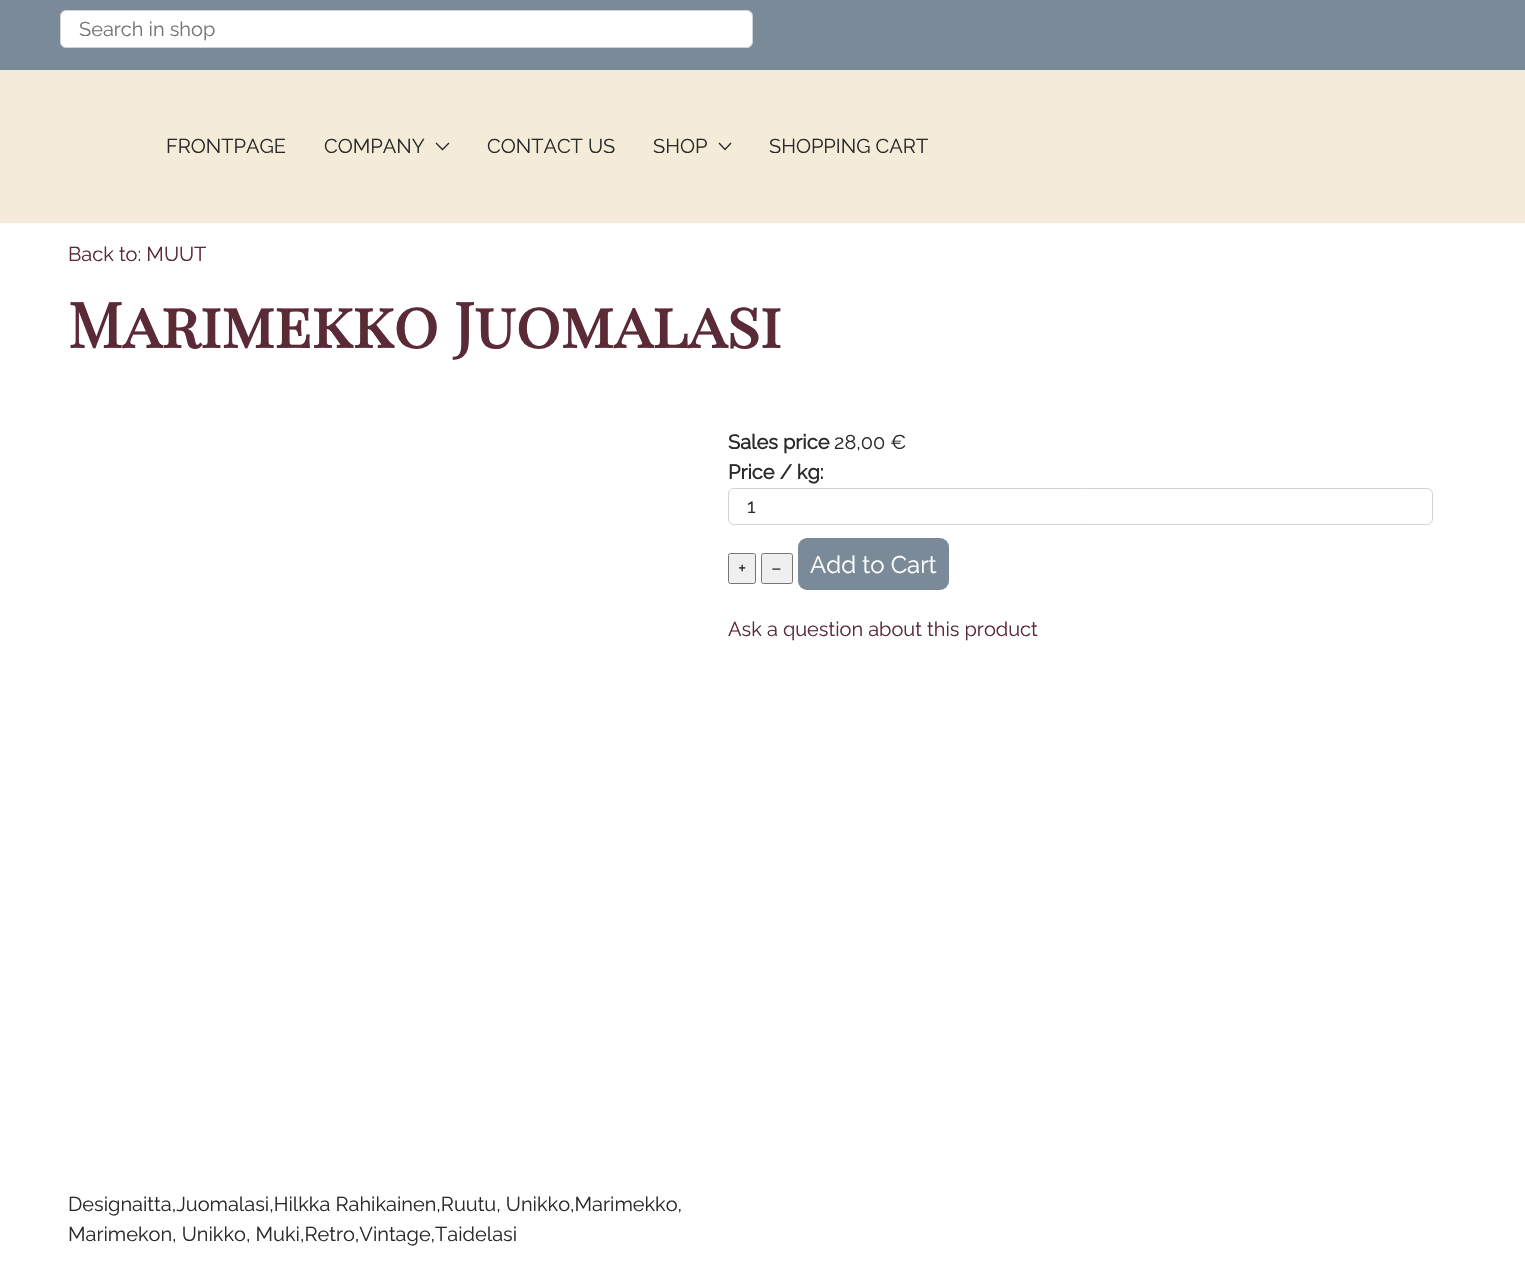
#include "include/core/SkBlurTypes.h"
#include "include/core/SkCanvas.h"
#include "include/core/SkData.h"
#include "include/core/SkFont.h"
#include "include/core/SkFontMgr.h"
#include "include/core/SkImage.h"
#include "include/core/SkMaskFilter.h"
#include "include/core/SkPaint.h"
#include "include/core/SkPathBuilder.h"
#include "include/core/SkTextBlob.h"
#include "include/effects/SkDashPathEffect.h"
#include "include/effects/SkGradientShader.h"
#include "include/utils/SkParsePath.h"

extern sk_sp<SkFontMgr> fontMgr;

void draw(SkCanvas* canvas) {
    SkPaint p;
    p.setAntiAlias(true);
    auto font = [&](const char* family, int weight, float size, bool italic = false) {
        SkFontStyle style(weight, SkFontStyle::kNormal_Width,
            italic ? SkFontStyle::kItalic_Slant : SkFontStyle::kUpright_Slant);
        SkFont result(fontMgr->matchFamilyStyle(family, style), size);
        result.setSubpixel(true);
        return result;
    };
    canvas->clear(0xFFF4ECD8);
    p.setColor(0xFF7B8A99);
    canvas->drawRect(SkRect::MakeLTRB(0, 0, 1525, 70), p);
    p.setColor(0xFFFFFFFF);
    canvas->drawRoundRect(SkRect::MakeLTRB(60.5f, 10.5f, 752.5f, 47.5f), 5.5f, 5.5f, p);
    p.setStyle(SkPaint::kStroke_Style);
    p.setStrokeWidth(1);
    p.setColor(0xFFCED4DA);
    canvas->drawRoundRect(SkRect::MakeLTRB(60.5f, 10.5f, 752.5f, 47.5f), 5.5f, 5.5f, p);
    auto font1 = font("Raleway", 100, 20);
    p.setStyle(SkPaint::kFill_Style);
    p.setColor(0xFF757575);
    canvas->drawString("Search in shop", 79, 36, font1, p);
    p.setColor(0xFF2A2A2A);
    canvas->drawString("FRONTPAGE", 166, 153, font1, p);
    canvas->drawString("COMPANY", 324, 153, font1, p);
    p.setStyle(SkPaint::kStroke_Style);
    p.setStrokeWidth(1.4f);
    canvas->drawPath(SkPathBuilder().moveTo(436, 143).lineTo(442.5f, 149.5f).lineTo(449, 143).detach(), p);
    p.setStyle(SkPaint::kFill_Style);
    canvas->drawString("CONTACT US", 487, 153, font1, p);
    canvas->drawString("SHOP", 653, 153, font1, p);
    p.setStyle(SkPaint::kStroke_Style);
    canvas->drawPath(SkPathBuilder().moveTo(719, 143).lineTo(725, 149.5f).lineTo(731, 143).detach(), p);
    p.setStyle(SkPaint::kFill_Style);
    canvas->drawString("SHOPPING CART", 769, 153, font1, p);
    p.setColor(0xFFFFFFFF);
    canvas->drawRect(SkRect::MakeLTRB(0, 223, 1525, 1279), p);
    p.setColor(0xFF5A2A36);
    canvas->drawString("Back to: MUUT", 68, 261, font1, p);
    auto font2 = font("Playfair Display SC", 700, 62.5f);
    canvas->drawString("Marimekko Juomalasi", 68, 348, font2, p);
    auto font3 = font("Raleway", 700, 20);
    p.setColor(0xFF2A2A2A);
    canvas->drawString("Sales price", 728, 449, font3, p);
    canvas->drawString("28,00 €", 834, 449, font1, p);
    canvas->drawString("Price / kg:", 728, 479, font3, p);
    p.setStyle(SkPaint::kStroke_Style);
    p.setStrokeWidth(1);
    p.setColor(0xFFCED4DA);
    canvas->drawRoundRect(SkRect::MakeLTRB(728.5f, 488.5f, 1432.5f, 524.5f), 5.5f, 5.5f, p);
    p.setStyle(SkPaint::kFill_Style);
    p.setColor(0xFF2A2A2A);
    canvas->drawString("1", 747, 513, font1, p);
    p.setColor(0xFFEFEFEF);
    canvas->drawRoundRect(SkRect::MakeLTRB(728.5f, 553.5f, 755.5f, 583.5f), 2, 2, p);
    p.setStyle(SkPaint::kStroke_Style);
    p.setColor(0xFF767676);
    canvas->drawRoundRect(SkRect::MakeLTRB(728.5f, 553.5f, 755.5f, 583.5f), 2, 2, p);
    p.setStyle(SkPaint::kFill_Style);
    p.setColor(0xFF2A2A2A);
    canvas->drawString("+", 738, 575, font1, p);
    p.setColor(0xFFEFEFEF);
    canvas->drawRoundRect(SkRect::MakeLTRB(761.5f, 553.5f, 792.5f, 583.5f), 2, 2, p);
    p.setStyle(SkPaint::kStroke_Style);
    p.setColor(0xFF767676);
    canvas->drawRoundRect(SkRect::MakeLTRB(761.5f, 553.5f, 792.5f, 583.5f), 2, 2, p);
    p.setStyle(SkPaint::kFill_Style);
    p.setColor(0xFF2A2A2A);
    canvas->drawString("−", 771, 575, font1, p);
    p.setColor(0xFF7B8A99);
    canvas->drawRoundRect(SkRect::MakeLTRB(798, 538, 949, 590), 9, 9, p);
    auto font4 = font("Raleway", 100, 24);
    p.setColor(0xFFFFFFFF);
    canvas->drawString("Add to Cart", 810, 573, font4, p);
    p.setColor(0xFF5A2A36);
    canvas->drawString("Ask a question about this product", 728, 636, font1, p);
    p.setColor(0xFF2A2A2A);
    canvas->drawString("Designaitta,Juomalasi,Hilkka Rahikainen,Ruutu, Unikko,Marimekko,", 68, 1211, font1, p);
    canvas->drawString("Marimekon, Unikko, Muki,Retro,Vintage,Taidelasi", 68, 1241, font1, p);
}
